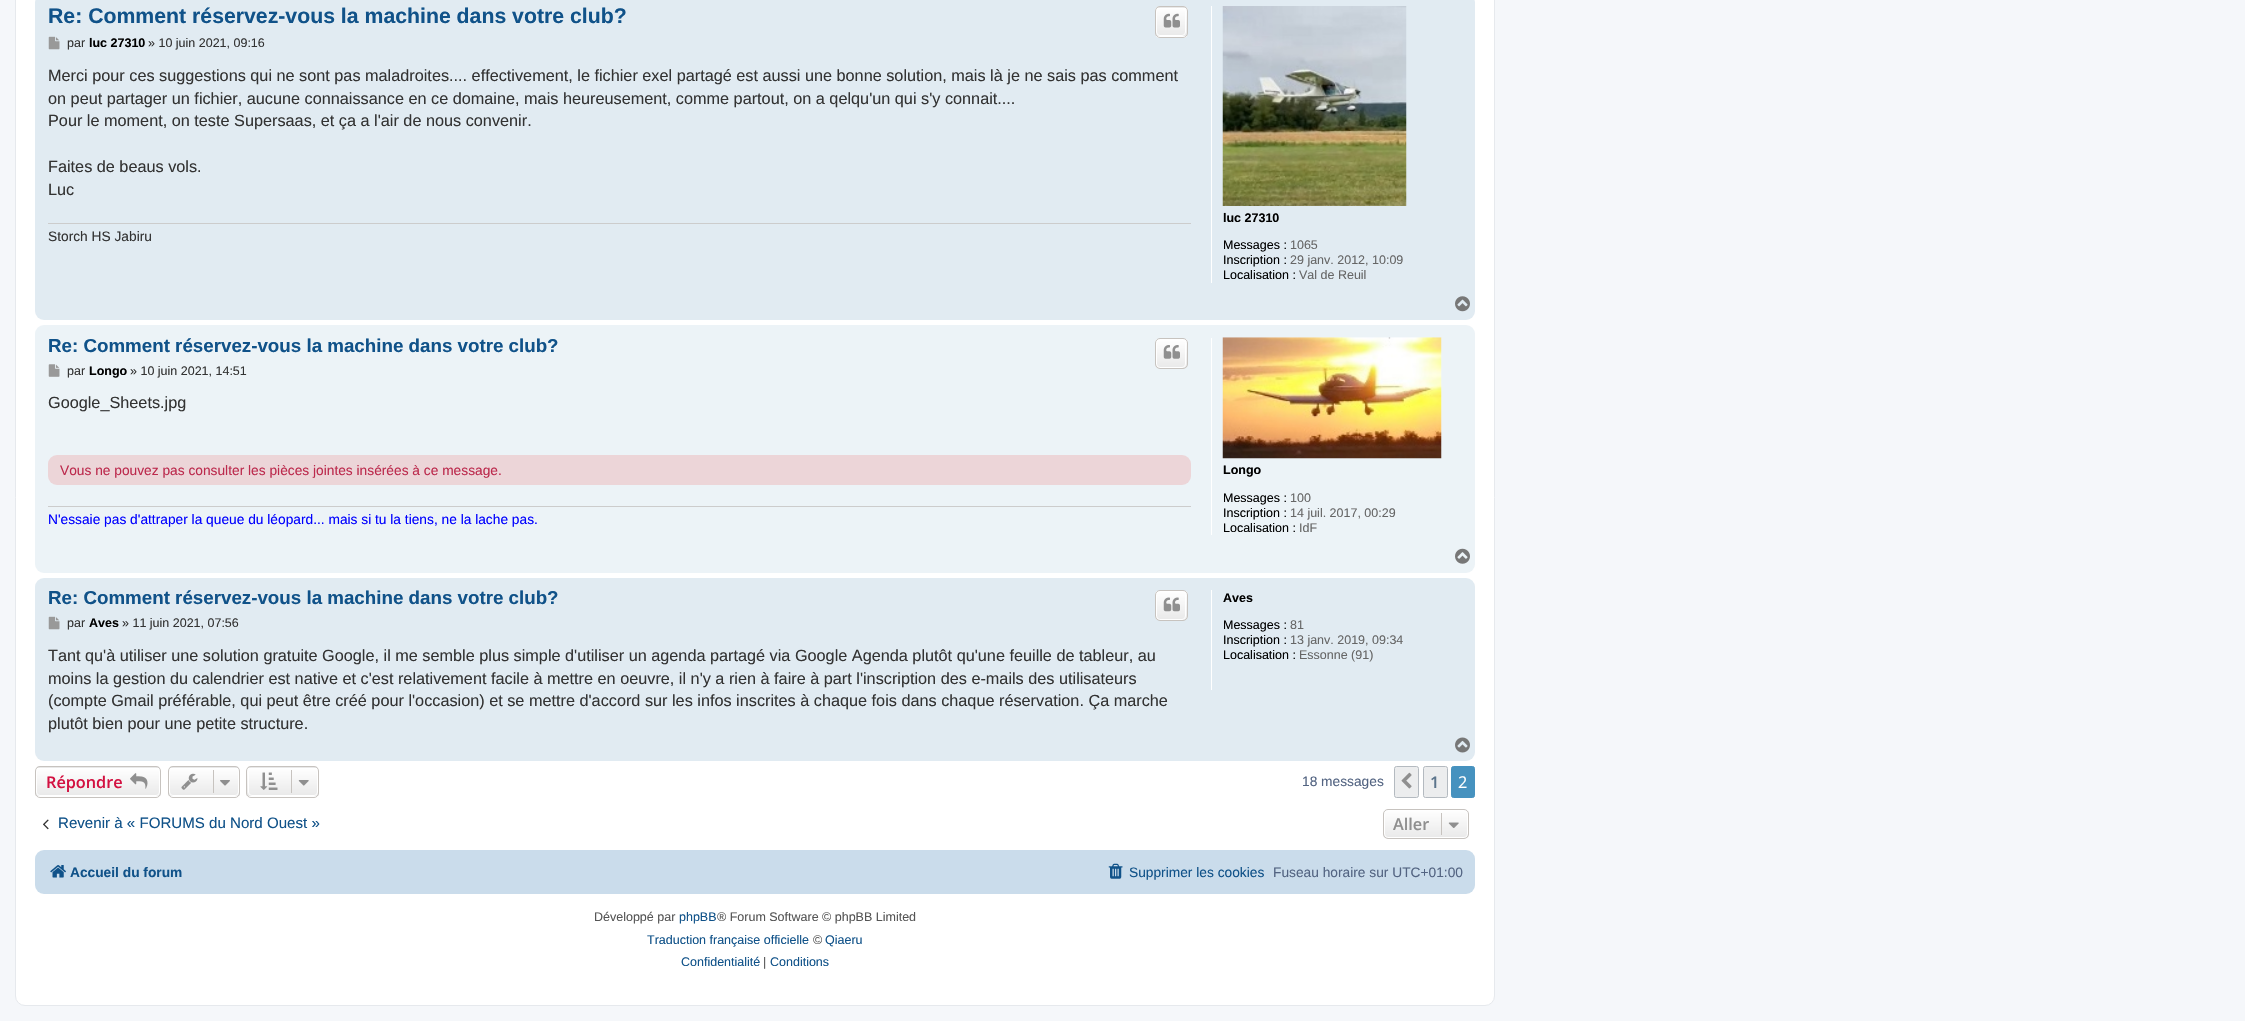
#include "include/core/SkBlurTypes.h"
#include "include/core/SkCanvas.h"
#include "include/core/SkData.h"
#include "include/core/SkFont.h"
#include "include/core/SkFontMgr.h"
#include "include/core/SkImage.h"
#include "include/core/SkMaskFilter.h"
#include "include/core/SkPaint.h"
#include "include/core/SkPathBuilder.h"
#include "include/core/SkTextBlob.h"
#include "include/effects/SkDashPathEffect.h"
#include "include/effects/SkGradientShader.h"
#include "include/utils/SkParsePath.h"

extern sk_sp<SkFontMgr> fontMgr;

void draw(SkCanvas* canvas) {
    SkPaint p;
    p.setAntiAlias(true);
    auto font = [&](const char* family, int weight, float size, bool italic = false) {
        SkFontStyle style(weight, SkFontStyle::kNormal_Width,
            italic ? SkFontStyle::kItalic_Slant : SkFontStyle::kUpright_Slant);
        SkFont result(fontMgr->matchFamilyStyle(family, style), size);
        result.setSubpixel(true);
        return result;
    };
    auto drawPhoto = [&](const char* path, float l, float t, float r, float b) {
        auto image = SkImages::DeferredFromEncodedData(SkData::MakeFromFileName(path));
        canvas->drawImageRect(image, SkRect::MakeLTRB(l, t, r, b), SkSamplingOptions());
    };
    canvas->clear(0xFFF5F7FA);
    p.setColor(0xFFFFFFFF);
    canvas->drawRoundRect(SkRect::MakeLTRB(15.5f, -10.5f, 1494.5f, 1005.5f), 9.5f, 9.5f, p);
    p.setStyle(SkPaint::kStroke_Style);
    p.setStrokeWidth(1);
    p.setColor(0xFFE6E9ED);
    canvas->drawRoundRect(SkRect::MakeLTRB(15.5f, -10.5f, 1494.5f, 1005.5f), 9.5f, 9.5f, p);
    p.setStyle(SkPaint::kFill_Style);
    p.setColor(0xFFE1EBF2);
    canvas->drawRoundRect(SkRect::MakeLTRB(35, -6, 1475, 320), 9, 9, p);
    auto font1 = font("Liberation Sans", 700, 21.25f);
    p.setColor(0xFF105289);
    canvas->drawString("Re: Comment réservez-vous la machine dans votre club?", 48, 23, font1, p);
    canvas->save();
    canvas->clipPath(SkPathBuilder().moveTo(1160, 6).lineTo(1183, 6).cubicTo(1186, 6, 1188, 8, 1188, 11).lineTo(1188, 33).cubicTo(1188, 36, 1186, 38, 1183, 38).lineTo(1160, 38).cubicTo(1157, 38, 1155, 36, 1155, 33).lineTo(1155, 11).cubicTo(1155, 8, 1157, 6, 1160, 6).close().detach(), true);
    {
        const SkColor colors[] = {0xFFFFFFFF, 0xFFE9E9E9};
        const float stops[] = {0, 1};
        const SkPoint ends[] = {{1171, -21}, {1171, 7.5f}};
        p.setShader(SkGradientShader::MakeLinear(ends, colors, stops, 2, SkTileMode::kClamp));
        p.setAlpha(255);
    }
    canvas->drawRect(SkRect::MakeLTRB(1155, 6, 1188, 8), p);
    {
        const SkColor colors[] = {0xFFFFFFFF, 0xFFE9E9E9};
        const float stops[] = {0, 1};
        const SkPoint ends[] = {{1171, 7.5f}, {1171, 36}};
        p.setShader(SkGradientShader::MakeLinear(ends, colors, stops, 2, SkTileMode::kClamp));
        p.setAlpha(255);
    }
    canvas->drawRect(SkRect::MakeLTRB(1155, 8, 1188, 36), p);
    {
        const SkColor colors[] = {0xFFFFFFFF, 0xFFE9E9E9};
        const float stops[] = {0, 1};
        const SkPoint ends[] = {{1171, 36}, {1171, 65}};
        p.setShader(SkGradientShader::MakeLinear(ends, colors, stops, 2, SkTileMode::kClamp));
        p.setAlpha(255);
    }
    canvas->drawRect(SkRect::MakeLTRB(1155, 36, 1188, 38), p);
    canvas->restore();
    p.setStyle(SkPaint::kStroke_Style);
    p.setShader(nullptr);
    p.setColor(0xFFFFFFFF);
    canvas->drawRoundRect(SkRect::MakeLTRB(1156.5f, 8.5f, 1185.5f, 35.5f), 3.5f, 3.5f, p);
    p.setColor(0xFFC7C3BF);
    canvas->drawRoundRect(SkRect::MakeLTRB(1155.5f, 6.5f, 1187.5f, 37.5f), 4.5f, 4.5f, p);
    drawPhoto("media/1.png", 1163, 13, 1180, 28);
    drawPhoto("media/2.png", 48, 36, 60, 50);
    auto font2 = font("Liberation Sans", 400, 12.5f);
    p.setStyle(SkPaint::kFill_Style);
    p.setColor(0xFF333333);
    canvas->drawString("par", 67, 47, font2, p);
    auto font3 = font("Liberation Sans", 700, 12.5f);
    p.setColor(0xFF000000);
    canvas->drawString("luc 27310", 89, 47, font3, p);
    p.setColor(0xFF333333);
    canvas->drawString("» 10 juin 2021, 09:16", 148, 47, font2, p);
    auto font4 = font("Liberation Sans", 400, 16.25f);
    {
        const struct { const char* s; float x, y; } items[] = {
            {"Merci pour ces suggestions qui ne sont pas maladroites.... effectivement, le fichier exel partagé est aussi une bonne solution, mais là je ne sais pas comment", 48, 81},
            {"on peut partager un fichier, aucune connaissance en ce domaine, mais heureusement, comme partout, on a qelqu'un qui s'y connait....", 48, 104},
            {"Pour le moment, on teste Supersaas, et ça a l'air de nous convenir.", 48, 126},
            {"Faites de beaus vols.", 48, 172},
            {"Luc", 48, 195},
        };
        for (auto [s, x, y] : items) {
            canvas->drawString(s, x, y, font4, p);
        }
    }
    p.setColor(0xFFCCCCCC);
    canvas->drawRect(SkRect::MakeLTRB(48, 223, 1191, 224), p);
    auto font5 = font("Liberation Sans", 400, 13.75f);
    p.setColor(0xFF333333);
    canvas->drawString("Storch HS Jabiru", 48, 241, font5, p);
    p.setColor(0xFFFFFFFF);
    canvas->drawRect(SkRect::MakeLTRB(1211, 6, 1212, 283), p);
    drawPhoto("media/3.png", 1222, 6, 1407, 206);
    p.setColor(0xFF000000);
    canvas->drawString("luc 27310", 1223, 222, font3, p);
    canvas->drawString("Messages :", 1223, 249, font2, p);
    p.setColor(0xFF666666);
    canvas->drawString("1065", 1290, 249, font2, p);
    p.setColor(0xFF000000);
    canvas->drawString("Inscription :", 1223, 264, font2, p);
    p.setColor(0xFF666666);
    canvas->drawString("29 janv. 2012, 10:09", 1290, 264, font2, p);
    p.setColor(0xFF000000);
    canvas->drawString("Localisation :", 1223, 279, font2, p);
    p.setColor(0xFF666666);
    canvas->drawString("Val de Reuil", 1299, 279, font2, p);
    drawPhoto("media/4.png", 1455, 296, 1470, 312);
    p.setColor(0xFFECF3F7);
    canvas->drawRoundRect(SkRect::MakeLTRB(35, 325, 1475, 573), 9, 9, p);
    auto font6 = font("Liberation Sans", 700, 18.75f);
    p.setColor(0xFF105289);
    canvas->drawString("Re: Comment réservez-vous la machine dans votre club?", 48, 352, font6, p);
    canvas->save();
    canvas->clipPath(SkPathBuilder().moveTo(1160, 338).lineTo(1183, 338).cubicTo(1186, 338, 1188, 340, 1188, 343).lineTo(1188, 364).cubicTo(1188, 367, 1186, 369, 1183, 369).lineTo(1160, 369).cubicTo(1157, 369, 1155, 367, 1155, 364).lineTo(1155, 343).cubicTo(1155, 340, 1157, 338, 1160, 338).close().detach(), true);
    {
        const SkColor colors[] = {0xFFFFFFFF, 0xFFE9E9E9};
        const float stops[] = {0, 1};
        const SkPoint ends[] = {{1171, 339}, {1171, 368}};
        p.setShader(SkGradientShader::MakeLinear(ends, colors, stops, 2, SkTileMode::kClamp));
        p.setAlpha(255);
    }
    canvas->drawRect(SkRect::MakeLTRB(1155, 339, 1188, 368), p);
    canvas->restore();
    p.setStyle(SkPaint::kStroke_Style);
    p.setShader(nullptr);
    p.setColor(0xFFFFFFFF);
    canvas->drawRoundRect(SkRect::MakeLTRB(1156.5f, 339.5f, 1185.5f, 367.5f), 3.5f, 3.5f, p);
    p.setColor(0xFFC7C3BF);
    canvas->drawRoundRect(SkRect::MakeLTRB(1155.5f, 338.5f, 1187.5f, 368.5f), 4.5f, 4.5f, p);
    drawPhoto("media/5.png", 1163, 345, 1180, 359);
    drawPhoto("media/6.png", 48, 364, 60, 377);
    p.setStyle(SkPaint::kFill_Style);
    p.setColor(0xFF333333);
    canvas->drawString("par", 67, 375, font2, p);
    p.setColor(0xFF000000);
    canvas->drawString("Longo", 89, 375, font3, p);
    p.setColor(0xFF333333);
    canvas->drawString("» 10 juin 2021, 14:51", 130, 375, font2, p);
    canvas->drawString("Google_Sheets.jpg", 48, 408, font4, p);
    p.setColor(0xFFECD5D8);
    canvas->drawRoundRect(SkRect::MakeLTRB(48, 455, 1191, 485), 9, 9, p);
    p.setColor(0xFFBC2A4D);
    canvas->drawString("Vous ne pouvez pas consulter les pièces jointes insérées à ce message.", 60, 475, font5, p);
    p.setColor(0xFFCCCCCC);
    canvas->drawRect(SkRect::MakeLTRB(48, 506, 1191, 507), p);
    p.setColor(0xFF0000FF);
    canvas->drawString("N'essaie pas d'attraper la queue du léopard... mais si tu la tiens, ne la lache pas.", 48, 524, font5, p);
    p.setColor(0xFFFFFFFF);
    canvas->drawRect(SkRect::MakeLTRB(1211, 338, 1212, 535), p);
    drawPhoto("media/7.png", 1222, 337, 1442, 459);
    p.setColor(0xFF000000);
    canvas->drawString("Longo", 1223, 474, font3, p);
    canvas->drawString("Messages :", 1223, 502, font2, p);
    p.setColor(0xFF666666);
    canvas->drawString("100", 1290, 502, font2, p);
    p.setColor(0xFF000000);
    canvas->drawString("Inscription :", 1223, 517, font2, p);
    p.setColor(0xFF666666);
    canvas->drawString("14 juil. 2017, 00:29", 1290, 517, font2, p);
    p.setColor(0xFF000000);
    canvas->drawString("Localisation :", 1223, 532, font2, p);
    p.setColor(0xFF666666);
    canvas->drawString("IdF", 1299, 532, font2, p);
    drawPhoto("media/8.png", 1455, 548, 1470, 564);
    p.setColor(0xFFE1EBF2);
    canvas->drawRoundRect(SkRect::MakeLTRB(35, 578, 1475, 761), 9, 9, p);
    p.setColor(0xFF105289);
    canvas->drawString("Re: Comment réservez-vous la machine dans votre club?", 48, 604, font6, p);
    canvas->save();
    canvas->clipPath(SkPathBuilder().moveTo(1160, 590).lineTo(1183, 590).cubicTo(1186, 590, 1188, 592, 1188, 595).lineTo(1188, 616).cubicTo(1188, 619, 1186, 621, 1183, 621).lineTo(1160, 621).cubicTo(1157, 621, 1155, 619, 1155, 616).lineTo(1155, 595).cubicTo(1155, 592, 1157, 590, 1160, 590).close().detach(), true);
    {
        const SkColor colors[] = {0xFFFFFFFF, 0xFFE9E9E9};
        const float stops[] = {0, 1};
        const SkPoint ends[] = {{1171, 591}, {1171, 620}};
        p.setShader(SkGradientShader::MakeLinear(ends, colors, stops, 2, SkTileMode::kClamp));
        p.setAlpha(255);
    }
    canvas->drawRect(SkRect::MakeLTRB(1155, 591, 1188, 620), p);
    canvas->restore();
    p.setStyle(SkPaint::kStroke_Style);
    p.setShader(nullptr);
    p.setColor(0xFFFFFFFF);
    canvas->drawRoundRect(SkRect::MakeLTRB(1156.5f, 591.5f, 1185.5f, 619.5f), 3.5f, 3.5f, p);
    p.setColor(0xFFC7C3BF);
    canvas->drawRoundRect(SkRect::MakeLTRB(1155.5f, 590.5f, 1187.5f, 620.5f), 4.5f, 4.5f, p);
    drawPhoto("media/9.png", 1163, 597, 1180, 612);
    drawPhoto("media/2.png", 48, 616, 60, 630);
    p.setStyle(SkPaint::kFill_Style);
    p.setColor(0xFF333333);
    canvas->drawString("par", 67, 627, font2, p);
    p.setColor(0xFF000000);
    canvas->drawString("Aves", 89, 627, font3, p);
    p.setColor(0xFF333333);
    canvas->drawString("» 11 juin 2021, 07:56", 122, 627, font2, p);
    {
        const struct { const char* s; float x, y; } items[] = {
            {"Tant qu'à utiliser une solution gratuite Google, il me semble plus simple d'utiliser un agenda partagé via Google Agenda plutôt qu'une feuille de tableur, au", 48, 661},
            {"moins la gestion du calendrier est native et c'est relativement facile à mettre en oeuvre, il n'y a rien à faire à part l'inscription des e-mails des utilisateurs", 48, 684},
            {"(compte Gmail préférable, qui peut être créé pour l'occasion) et se mettre d'accord sur les infos inscrites à chaque fois dans chaque réservation. Ça marche", 48, 706},
            {"plutôt bien pour une petite structure.", 48, 729},
        };
        for (auto [s, x, y] : items) {
            canvas->drawString(s, x, y, font4, p);
        }
    }
    p.setColor(0xFFFFFFFF);
    canvas->drawRect(SkRect::MakeLTRB(1211, 590, 1212, 690), p);
    p.setColor(0xFF000000);
    canvas->drawString("Aves", 1223, 602, font3, p);
    canvas->drawString("Messages :", 1223, 629, font2, p);
    p.setColor(0xFF666666);
    canvas->drawString("81", 1290, 629, font2, p);
    p.setColor(0xFF000000);
    canvas->drawString("Inscription :", 1223, 644, font2, p);
    p.setColor(0xFF666666);
    canvas->drawString("13 janv. 2019, 09:34", 1290, 644, font2, p);
    p.setColor(0xFF000000);
    canvas->drawString("Localisation :", 1223, 659, font2, p);
    p.setColor(0xFF666666);
    canvas->drawString("Essonne (91)", 1299, 659, font2, p);
    drawPhoto("media/10.png", 1455, 737, 1470, 753);
    canvas->save();
    canvas->clipPath(SkPathBuilder().moveTo(40, 766).lineTo(156, 766).cubicTo(159, 766, 161, 768, 161, 771).lineTo(161, 793).cubicTo(161, 796, 159, 798, 156, 798).lineTo(40, 798).cubicTo(37, 798, 35, 796, 35, 793).lineTo(35, 771).cubicTo(35, 768, 37, 766, 40, 766).close().detach(), true);
    {
        const SkColor colors[] = {0xFFFFFFFF, 0xFFE9E9E9};
        const float stops[] = {0, 1};
        const SkPoint ends[] = {{98, 739}, {98, 768}};
        p.setShader(SkGradientShader::MakeLinear(ends, colors, stops, 2, SkTileMode::kClamp));
        p.setAlpha(255);
    }
    canvas->drawRect(SkRect::MakeLTRB(35, 766, 161, 768), p);
    {
        const SkColor colors[] = {0xFFFFFFFF, 0xFFE9E9E9};
        const float stops[] = {0, 1};
        const SkPoint ends[] = {{98, 768}, {98, 796}};
        p.setShader(SkGradientShader::MakeLinear(ends, colors, stops, 2, SkTileMode::kClamp));
        p.setAlpha(255);
    }
    canvas->drawRect(SkRect::MakeLTRB(35, 768, 161, 796), p);
    canvas->restore();
    p.setStyle(SkPaint::kStroke_Style);
    p.setShader(nullptr);
    p.setColor(0xFFFFFFFF);
    canvas->drawRoundRect(SkRect::MakeLTRB(36.5f, 768.5f, 159.5f, 795.5f), 3.5f, 3.5f, p);
    p.setColor(0xFFC7C3BF);
    canvas->drawRoundRect(SkRect::MakeLTRB(35.5f, 766.5f, 160.5f, 797.5f), 4.5f, 4.5f, p);
    auto font7 = font("Open Sans", 600, 16.25f);
    p.setStyle(SkPaint::kFill_Style);
    p.setColor(0xFFD31141);
    canvas->drawString("Répondre", 46, 788, font7, p);
    drawPhoto("media/11.png", 130, 773, 148, 789);
    canvas->save();
    canvas->clipPath(SkPathBuilder().moveTo(173, 766).lineTo(235, 766).cubicTo(238, 766, 240, 768, 240, 771).lineTo(240, 793).cubicTo(240, 796, 238, 798, 235, 798).lineTo(173, 798).cubicTo(170, 798, 168, 796, 168, 793).lineTo(168, 771).cubicTo(168, 768, 170, 766, 173, 766).close().detach(), true);
    {
        const SkColor colors[] = {0xFFFFFFFF, 0xFFE9E9E9};
        const float stops[] = {0, 1};
        const SkPoint ends[] = {{204, 739}, {204, 768}};
        p.setShader(SkGradientShader::MakeLinear(ends, colors, stops, 2, SkTileMode::kClamp));
        p.setAlpha(255);
    }
    canvas->drawRect(SkRect::MakeLTRB(168, 766, 240, 768), p);
    {
        const SkColor colors[] = {0xFFFFFFFF, 0xFFE9E9E9};
        const float stops[] = {0, 1};
        const SkPoint ends[] = {{204, 768}, {204, 796}};
        p.setShader(SkGradientShader::MakeLinear(ends, colors, stops, 2, SkTileMode::kClamp));
        p.setAlpha(255);
    }
    canvas->drawRect(SkRect::MakeLTRB(168, 768, 240, 796), p);
    canvas->restore();
    p.setStyle(SkPaint::kStroke_Style);
    p.setShader(nullptr);
    p.setColor(0xFFFFFFFF);
    canvas->drawRoundRect(SkRect::MakeLTRB(169.5f, 768.5f, 238.5f, 795.5f), 3.5f, 3.5f, p);
    p.setColor(0xFFC7C3BF);
    canvas->drawRoundRect(SkRect::MakeLTRB(168.5f, 766.5f, 239.5f, 797.5f), 4.5f, 4.5f, p);
    drawPhoto("media/12.png", 181, 773, 198, 790);
    p.setStyle(SkPaint::kFill_Style);
    canvas->drawRect(SkRect::MakeLTRB(213, 770, 214, 793), p);
    drawPhoto("media/13.png", 220, 780, 230, 786);
    canvas->save();
    canvas->clipPath(SkPathBuilder().moveTo(251, 766).lineTo(314, 766).cubicTo(317, 766, 319, 768, 319, 771).lineTo(319, 793).cubicTo(319, 796, 317, 798, 314, 798).lineTo(251, 798).cubicTo(248, 798, 246, 796, 246, 793).lineTo(246, 771).cubicTo(246, 768, 248, 766, 251, 766).close().detach(), true);
    {
        const SkColor colors[] = {0xFFFFFFFF, 0xFFE9E9E9};
        const float stops[] = {0, 1};
        const SkPoint ends[] = {{283, 739}, {283, 768}};
        p.setShader(SkGradientShader::MakeLinear(ends, colors, stops, 2, SkTileMode::kClamp));
        p.setAlpha(255);
    }
    canvas->drawRect(SkRect::MakeLTRB(246, 766, 319, 768), p);
    {
        const SkColor colors[] = {0xFFFFFFFF, 0xFFE9E9E9};
        const float stops[] = {0, 1};
        const SkPoint ends[] = {{283, 768}, {283, 796}};
        p.setShader(SkGradientShader::MakeLinear(ends, colors, stops, 2, SkTileMode::kClamp));
        p.setAlpha(255);
    }
    canvas->drawRect(SkRect::MakeLTRB(246, 768, 319, 796), p);
    canvas->restore();
    p.setStyle(SkPaint::kStroke_Style);
    p.setShader(nullptr);
    p.setColor(0xFFFFFFFF);
    canvas->drawRoundRect(SkRect::MakeLTRB(248.5f, 768.5f, 317.5f, 795.5f), 3.5f, 3.5f, p);
    p.setColor(0xFFC7C3BF);
    canvas->drawRoundRect(SkRect::MakeLTRB(246.5f, 766.5f, 318.5f, 797.5f), 4.5f, 4.5f, p);
    drawPhoto("media/14.png", 260, 772, 278, 790);
    p.setStyle(SkPaint::kFill_Style);
    canvas->drawRect(SkRect::MakeLTRB(291, 770, 292, 793), p);
    drawPhoto("media/15.png", 298, 780, 309, 786);
    p.setColor(0xFF536482);
    canvas->drawString("18 messages", 1302, 786, font5, p);
    p.setColor(0xFFECEDEE);
    canvas->drawRoundRect(SkRect::MakeLTRB(1394.5f, 766.5f, 1418.5f, 797.5f), 2, 2, p);
    p.setStyle(SkPaint::kStroke_Style);
    p.setColor(0xFFB4BAC0);
    canvas->drawRoundRect(SkRect::MakeLTRB(1394.5f, 766.5f, 1418.5f, 797.5f), 2, 2, p);
    drawPhoto("media/16.png", 1401, 772, 1412, 789);
    p.setStyle(SkPaint::kFill_Style);
    p.setColor(0xFFECEDEE);
    canvas->drawRoundRect(SkRect::MakeLTRB(1423.5f, 766.5f, 1447.5f, 797.5f), 2, 2, p);
    p.setStyle(SkPaint::kStroke_Style);
    p.setColor(0xFFB4BAC0);
    canvas->drawRoundRect(SkRect::MakeLTRB(1423.5f, 766.5f, 1447.5f, 797.5f), 2, 2, p);
    p.setStyle(SkPaint::kFill_Style);
    p.setColor(0xFF5C758C);
    canvas->drawString("1", 1430, 788, font7, p);
    p.setColor(0xFF4692BF);
    canvas->drawRoundRect(SkRect::MakeLTRB(1451.5f, 766.5f, 1474.5f, 797.5f), 2, 2, p);
    p.setStyle(SkPaint::kStroke_Style);
    canvas->drawRoundRect(SkRect::MakeLTRB(1451.5f, 766.5f, 1474.5f, 797.5f), 2, 2, p);
    auto font8 = font("Open Sans", 400, 16.25f);
    p.setStyle(SkPaint::kFill_Style);
    p.setColor(0xFFFFFFFF);
    canvas->drawString("2", 1458, 788, font8, p);
    drawPhoto("media/17.png", 43, 819, 49, 830);
    auto font9 = font("Liberation Sans", 400, 15.1f);
    p.setColor(0xFF105289);
    canvas->drawString("Revenir à « FORUMS du Nord Ouest »", 58, 828, font9, p);
    canvas->save();
    canvas->clipPath(SkPathBuilder().moveTo(1388, 809).lineTo(1464, 809).cubicTo(1467, 809, 1469, 811, 1469, 814).lineTo(1469, 834).cubicTo(1469, 837, 1467, 839, 1464, 839).lineTo(1388, 839).cubicTo(1385, 839, 1383, 837, 1383, 834).lineTo(1383, 814).cubicTo(1383, 811, 1385, 809, 1388, 809).close().detach(), true);
    {
        const SkColor colors[] = {0xFFFFFFFF, 0xFFE9E9E9};
        const float stops[] = {0, 1};
        const SkPoint ends[] = {{1426, 810}, {1426, 838}};
        p.setShader(SkGradientShader::MakeLinear(ends, colors, stops, 2, SkTileMode::kClamp));
        p.setAlpha(255);
    }
    canvas->drawRect(SkRect::MakeLTRB(1383, 810, 1469, 838), p);
    canvas->restore();
    p.setStyle(SkPaint::kStroke_Style);
    p.setShader(nullptr);
    p.setColor(0xFFFFFFFF);
    canvas->drawRoundRect(SkRect::MakeLTRB(1384.5f, 810.5f, 1467.5f, 837.5f), 3.5f, 3.5f, p);
    p.setColor(0xFFC7C3BF);
    canvas->drawRoundRect(SkRect::MakeLTRB(1383.5f, 809.5f, 1468.5f, 838.5f), 4.5f, 4.5f, p);
    p.setStyle(SkPaint::kFill_Style);
    p.setColor(0xFF8F8F8F);
    canvas->drawString("Aller", 1393, 830, font7, p);
    p.setColor(0xFFC7C3BF);
    canvas->drawRect(SkRect::MakeLTRB(1441, 813, 1442, 835), p);
    drawPhoto("media/18.png", 1448, 822, 1459, 828);
    p.setColor(0xFFCADCEB);
    canvas->drawRoundRect(SkRect::MakeLTRB(35, 850, 1475, 894), 9, 9, p);
    drawPhoto("media/19.png", 50, 865, 66, 878);
    auto font10 = font("Liberation Sans", 700, 13.75f);
    p.setColor(0xFF105289);
    canvas->drawString("Accueil du forum", 70, 877, font10, p);
    drawPhoto("media/20.png", 1108, 863, 1123, 879);
    canvas->drawString("Supprimer les cookies", 1129, 877, font5, p);
    p.setColor(0xFF536482);
    canvas->drawString("Fuseau horaire sur UTC+01:00", 1273, 877, font5, p);
    p.setColor(0xFF555555);
    canvas->drawString("Développé par", 594, 921, font2, p);
    p.setColor(0xFF105289);
    canvas->drawString("phpBB", 679, 921, font2, p);
    p.setColor(0xFF555555);
    canvas->drawString("® Forum Software © phpBB Limited", 717, 921, font2, p);
    p.setColor(0xFF105289);
    canvas->drawString("Traduction française officielle", 647, 944, font2, p);
    p.setColor(0xFF555555);
    canvas->drawString("©", 813, 944, font2, p);
    p.setColor(0xFF105289);
    canvas->drawString("Qiaeru", 825, 944, font2, p);
    canvas->drawString("Confidentialité", 681, 966, font2, p);
    p.setColor(0xFF555555);
    canvas->drawString("|", 763, 966, font2, p);
    p.setColor(0xFF105289);
    canvas->drawString("Conditions", 770, 966, font2, p);
}
